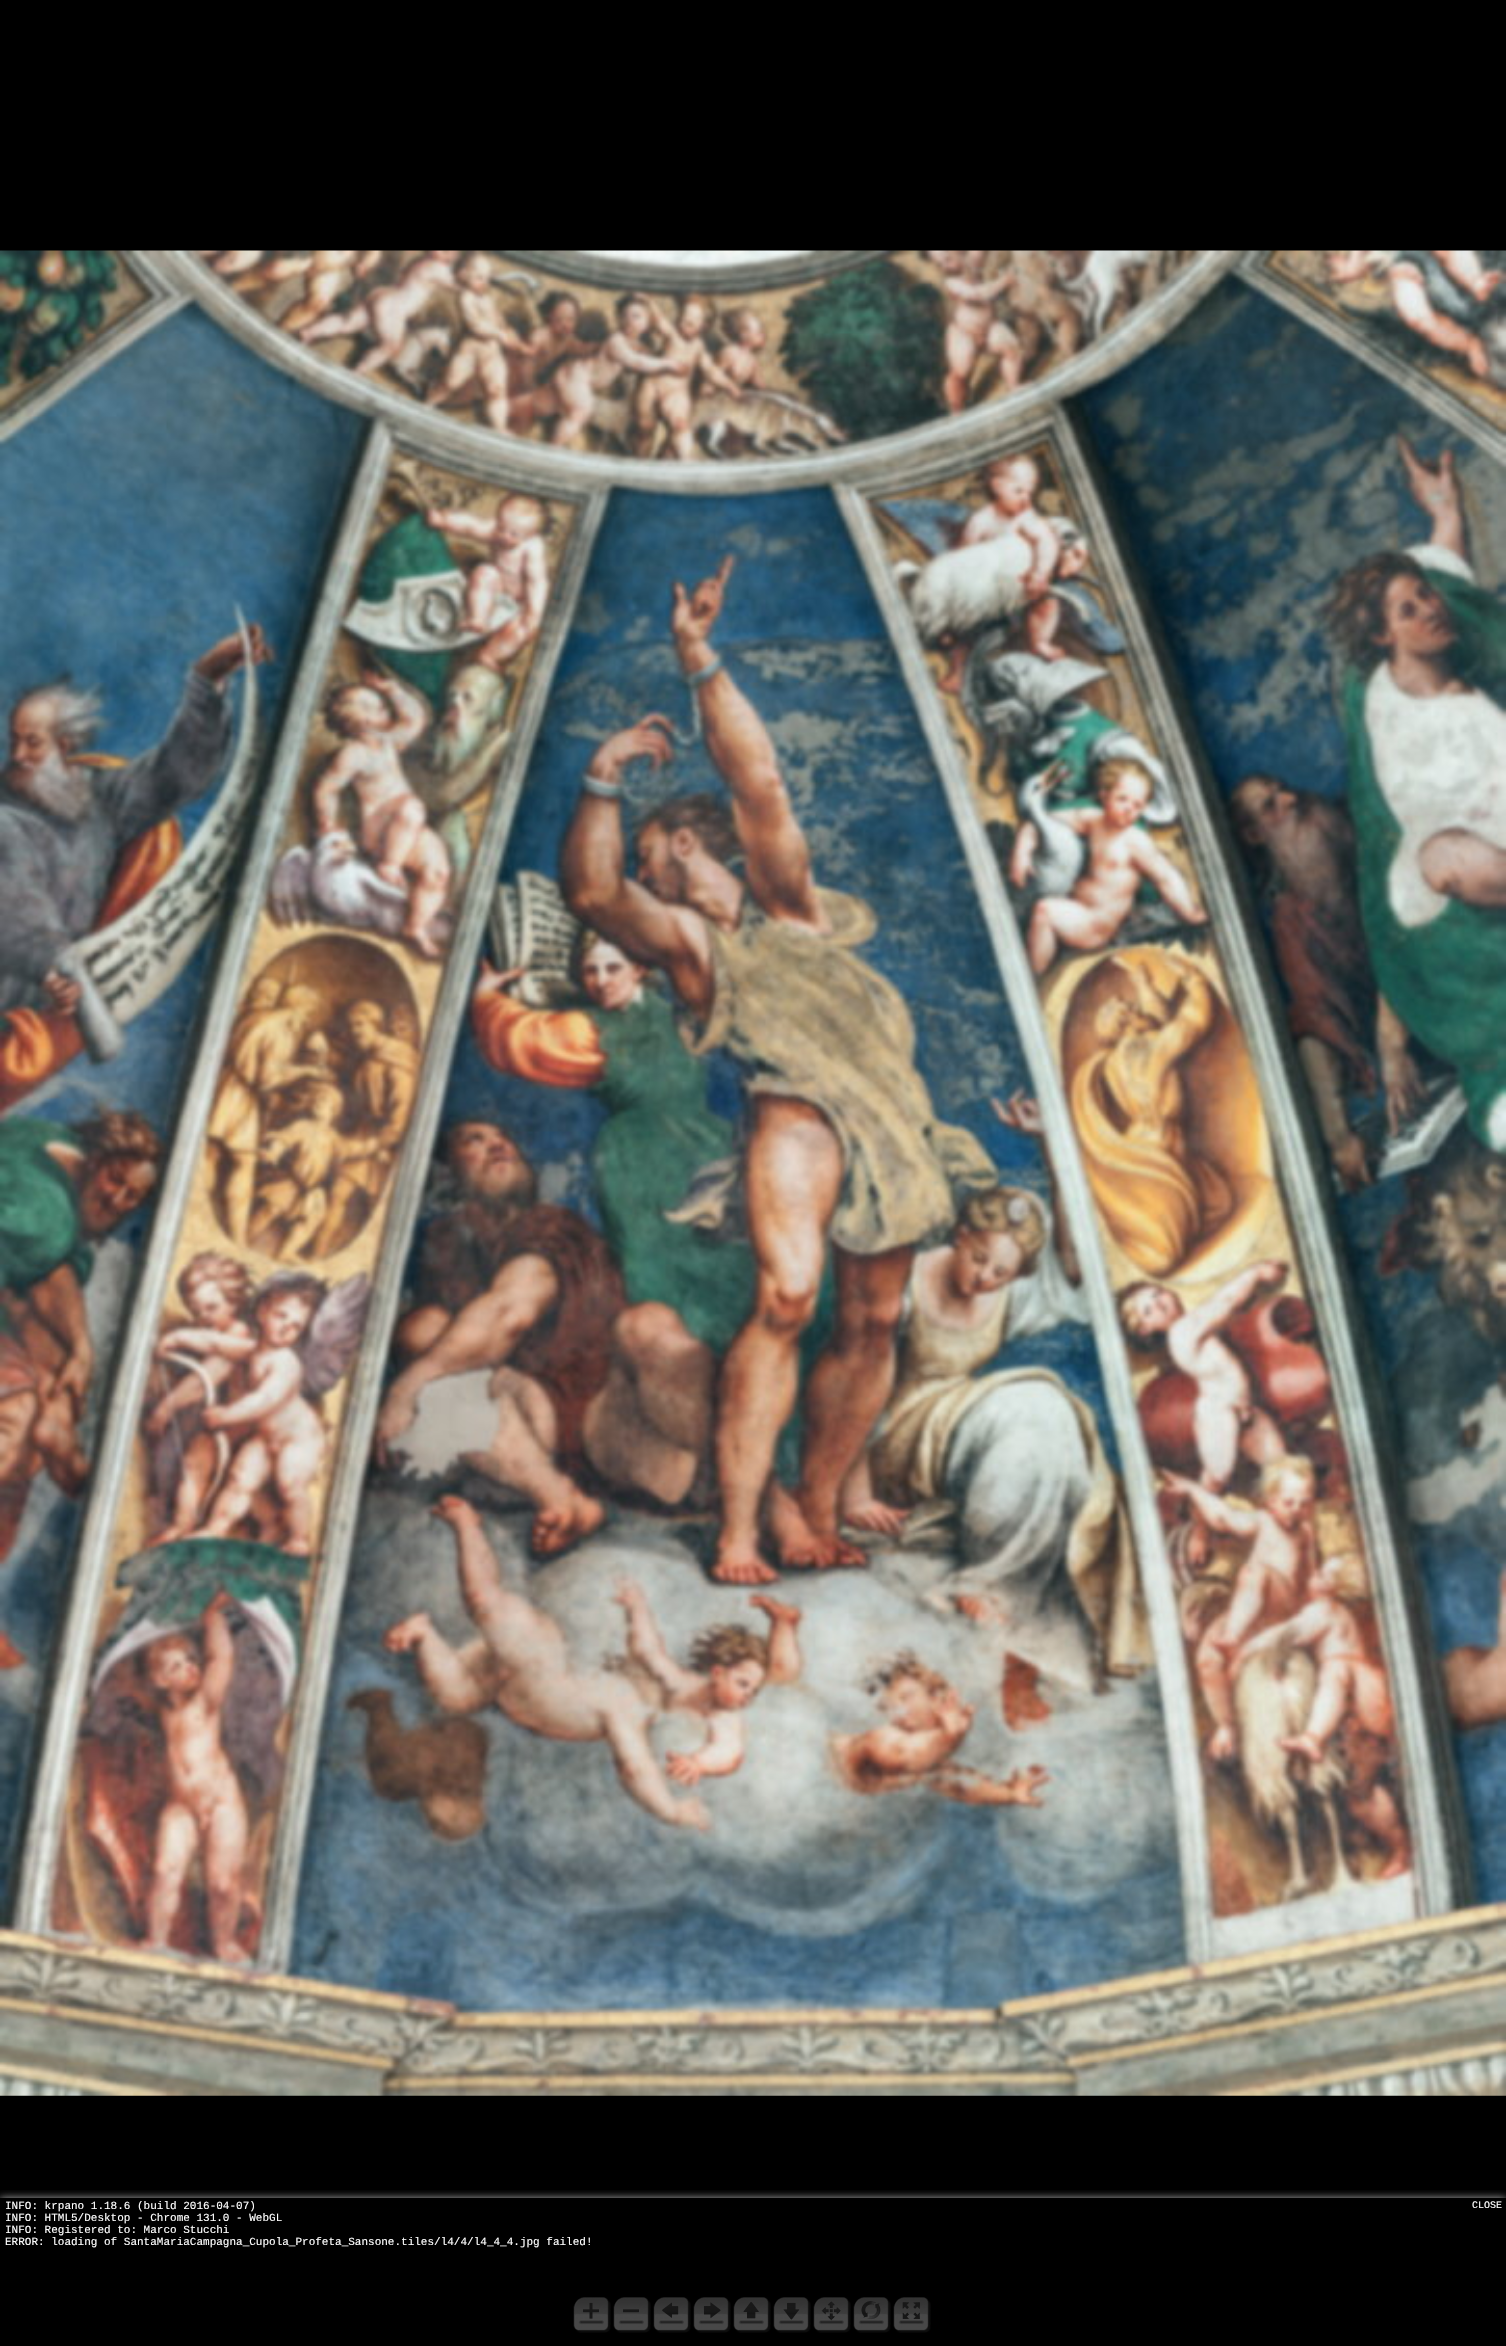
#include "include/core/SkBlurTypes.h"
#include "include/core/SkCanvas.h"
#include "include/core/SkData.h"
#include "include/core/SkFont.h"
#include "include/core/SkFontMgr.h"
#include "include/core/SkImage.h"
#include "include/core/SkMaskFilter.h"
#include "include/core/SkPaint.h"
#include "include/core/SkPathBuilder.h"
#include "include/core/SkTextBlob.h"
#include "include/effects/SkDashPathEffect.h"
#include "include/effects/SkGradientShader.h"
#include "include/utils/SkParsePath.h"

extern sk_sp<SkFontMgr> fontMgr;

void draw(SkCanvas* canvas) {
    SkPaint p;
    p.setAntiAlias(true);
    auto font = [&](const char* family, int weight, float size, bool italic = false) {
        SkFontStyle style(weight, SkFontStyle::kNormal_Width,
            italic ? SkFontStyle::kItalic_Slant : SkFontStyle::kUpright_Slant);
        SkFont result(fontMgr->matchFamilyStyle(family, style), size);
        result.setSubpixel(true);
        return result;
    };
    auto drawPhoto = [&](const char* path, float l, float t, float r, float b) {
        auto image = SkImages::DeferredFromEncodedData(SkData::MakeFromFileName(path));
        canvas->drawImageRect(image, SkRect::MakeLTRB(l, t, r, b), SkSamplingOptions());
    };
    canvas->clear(0xFF000000);
    drawPhoto("media/1.png", 0, 250, 1506, 2096);
    drawPhoto("media/2.png", 573, 2297, 611, 2333);
    drawPhoto("media/3.png", 613, 2297, 651, 2333);
    drawPhoto("media/4.png", 653, 2297, 691, 2333);
    drawPhoto("media/5.png", 693, 2297, 731, 2333);
    drawPhoto("media/6.png", 733, 2297, 771, 2333);
    drawPhoto("media/7.png", 773, 2297, 811, 2333);
    drawPhoto("media/8.png", 813, 2297, 851, 2333);
    drawPhoto("media/9.png", 853, 2297, 891, 2333);
    drawPhoto("media/10.png", 893, 2297, 931, 2333);
    canvas->save();
    canvas->clipRect(SkRect::MakeLTRB(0, 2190, 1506, 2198));
    p.setColor(0xFFABABAB);
    p.setMaskFilter(SkMaskFilter::MakeBlur(kNormal_SkBlurStyle, 4));
    canvas->drawRect(SkRect::MakeLTRB(0, 2198, 1506, 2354), p);
    p.setMaskFilter(nullptr);
    canvas->restore();
    auto font1 = font("Liberation Mono", 400, 11);
    p.setColor(0xFFFFFFFF);
    {
        const struct { const char* s; float x, y; } items[] = {
            {"INFO: krpano 1.18.6 (build 2016-04-07)", 5, 2209},
            {"INFO: HTML5/Desktop - Chrome 131.0 - WebGL", 5, 2221},
            {"INFO: Registered to: Marco Stucchi", 5, 2233},
            {"ERROR: loading of SantaMariaCampagna_Cupola_Profeta_Sansone.tiles/l4/4/l4_4_4.jpg failed!", 5, 2245},
        };
        for (auto [s, x, y] : items) {
            canvas->drawString(s, x, y, font1, p);
        }
    }
    auto font2 = font("Liberation Mono", 400, 10);
    canvas->drawString("CLOSE", 1472, 2208, font2, p);
}
